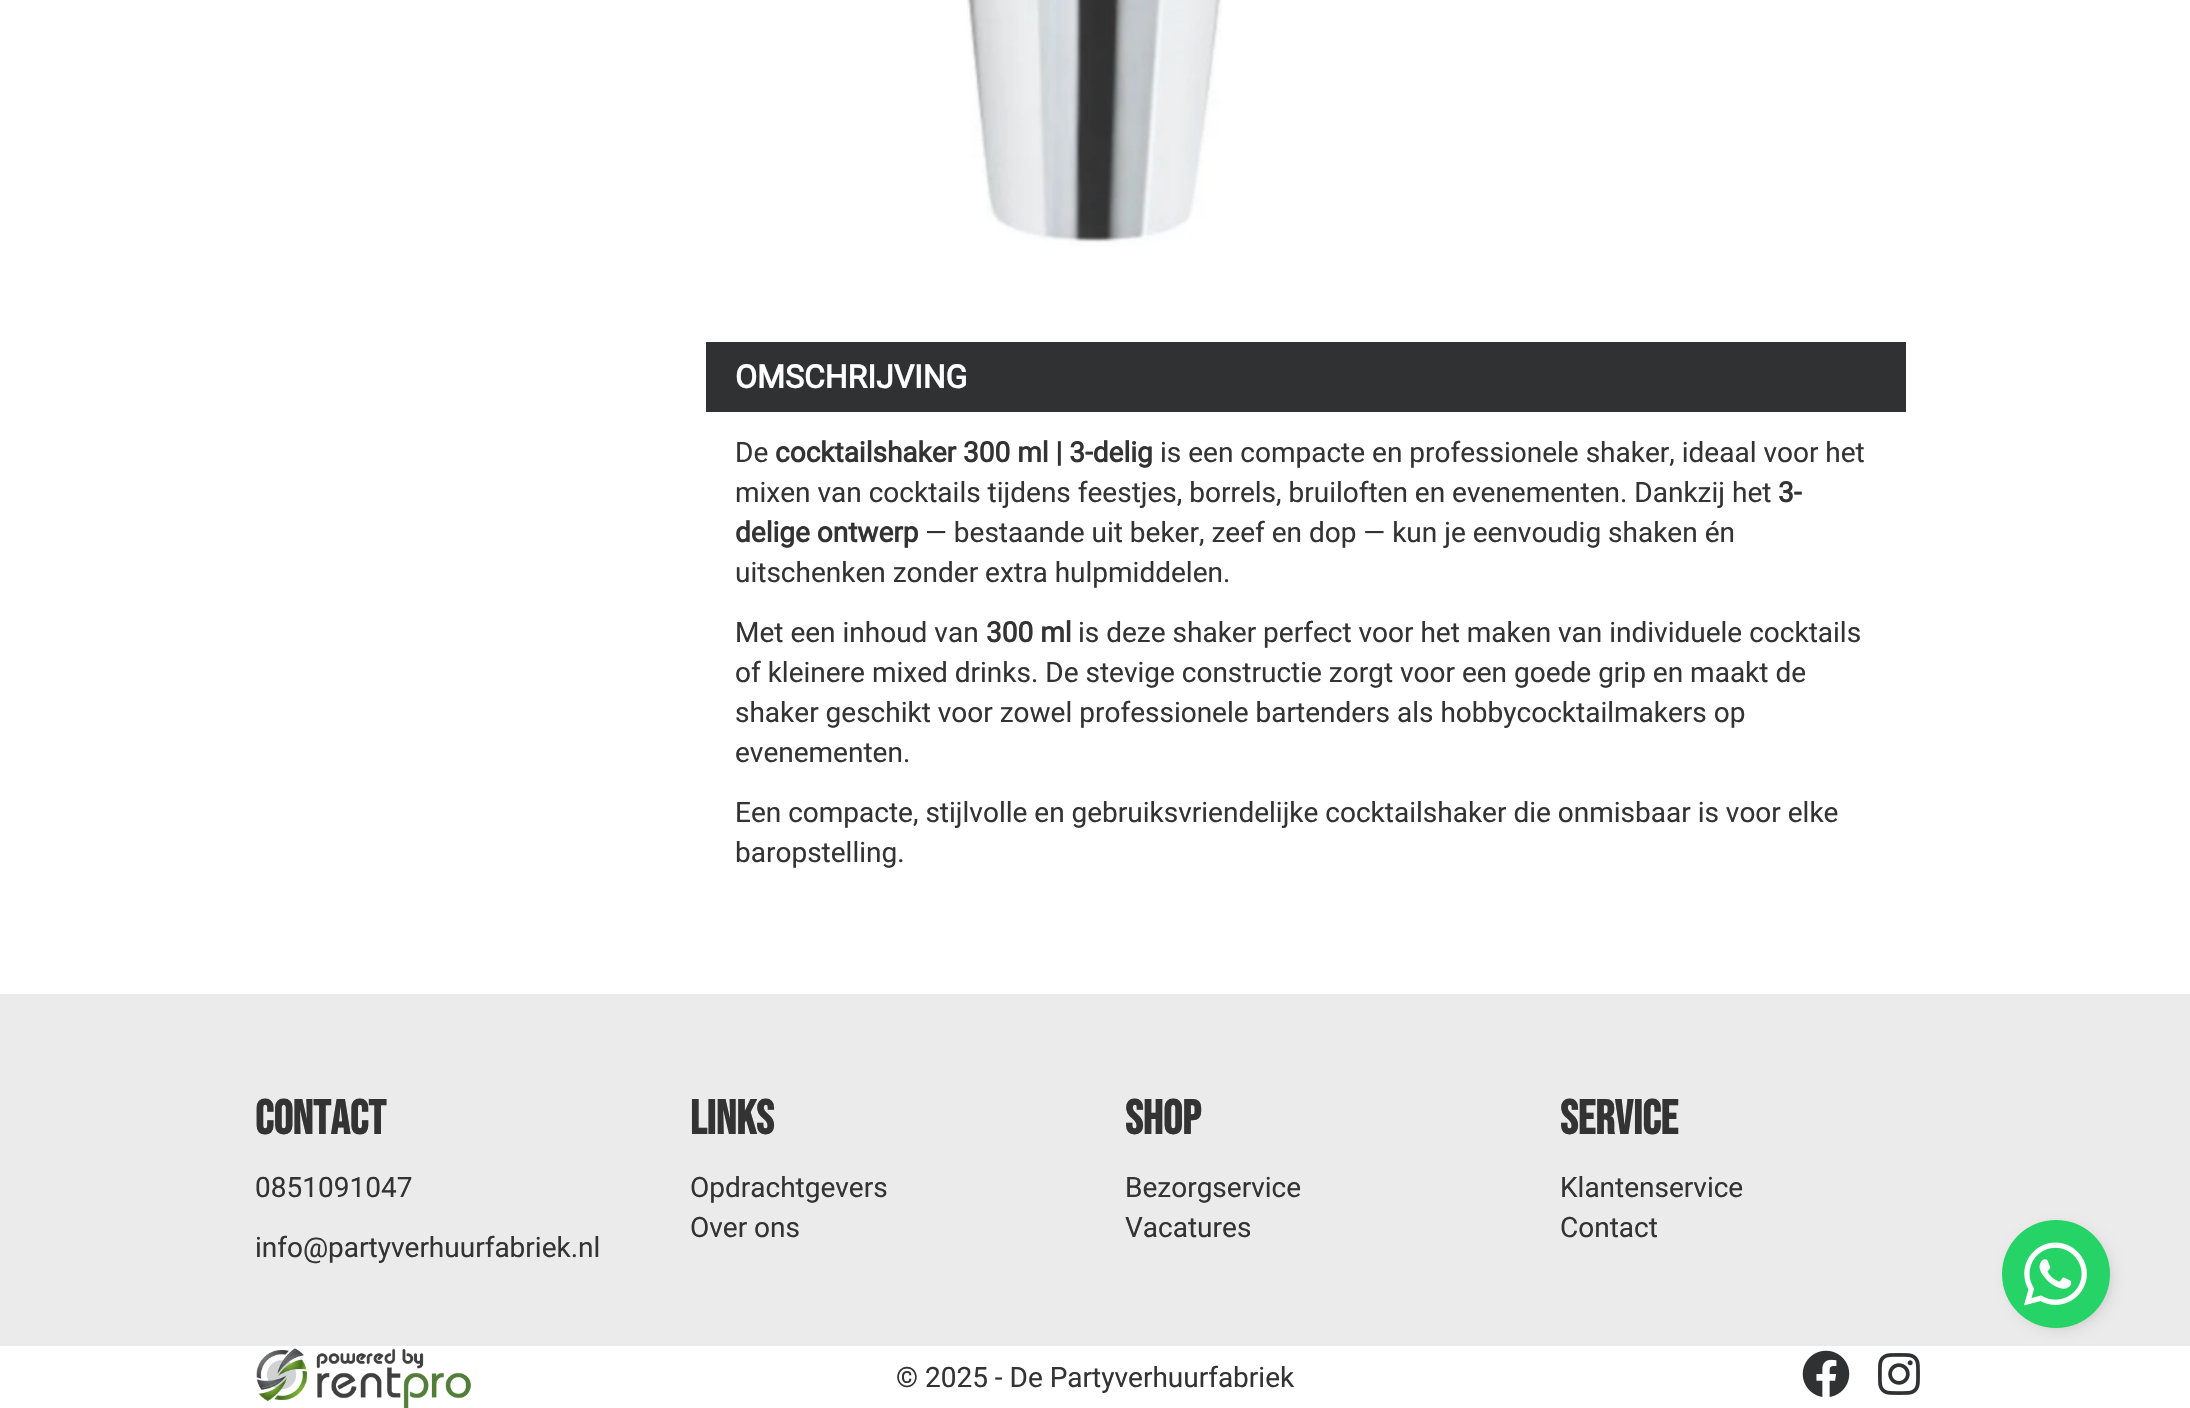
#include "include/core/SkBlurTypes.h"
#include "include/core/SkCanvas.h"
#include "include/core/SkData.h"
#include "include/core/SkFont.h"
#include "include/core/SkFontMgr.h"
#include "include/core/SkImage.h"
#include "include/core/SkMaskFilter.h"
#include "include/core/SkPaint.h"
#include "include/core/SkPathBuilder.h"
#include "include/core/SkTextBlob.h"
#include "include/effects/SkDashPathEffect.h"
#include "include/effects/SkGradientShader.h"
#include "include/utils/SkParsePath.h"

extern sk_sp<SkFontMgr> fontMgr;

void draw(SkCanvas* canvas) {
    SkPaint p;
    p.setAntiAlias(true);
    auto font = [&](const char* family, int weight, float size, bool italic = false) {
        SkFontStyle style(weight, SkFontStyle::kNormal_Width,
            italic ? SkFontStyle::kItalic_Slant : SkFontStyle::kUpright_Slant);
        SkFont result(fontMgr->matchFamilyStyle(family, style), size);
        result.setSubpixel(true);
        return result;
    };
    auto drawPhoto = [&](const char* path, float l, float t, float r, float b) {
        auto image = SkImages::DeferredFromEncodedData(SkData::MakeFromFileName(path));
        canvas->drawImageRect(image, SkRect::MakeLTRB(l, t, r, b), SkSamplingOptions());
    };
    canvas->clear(0xFFFFFFFF);
    drawPhoto("media/1.png", 967, 0, 1222, 246);
    p.setColor(0xFF303133);
    canvas->drawRect(SkRect::MakeLTRB(706, 342, 1906, 412), p);
    auto font1 = font("Roboto", 700, 32);
    p.setColor(0xFFFFFFFF);
    canvas->drawString("OMSCHRIJVING", 735, 388, font1, p);
    auto font2 = font("Roboto", 400, 28);
    p.setColor(0xFF333333);
    canvas->drawString("De", 735, 462, font2, p);
    auto font3 = font("Roboto", 700, 28);
    canvas->drawString("cocktailshaker 300 ml | 3-delig", 775, 462, font3, p);
    canvas->drawString("is een compacte en professionele shaker, ideaal voor het", 1160, 462, font2, p);
    canvas->drawString("mixen van cocktails tijdens feestjes, borrels, bruiloften en evenementen. Dankzij het", 735, 502, font2, p);
    canvas->drawString("3-", 1778, 502, font3, p);
    canvas->drawString("delige ontwerp", 735, 542, font3, p);
    {
        const struct { const char* s; float x, y; } items[] = {
            {"— bestaande uit beker, zeef en dop — kun je eenvoudig shaken én", 925, 542},
            {"uitschenken zonder extra hulpmiddelen.", 735, 582},
            {"Met een inhoud van", 735, 642},
        };
        for (auto [s, x, y] : items) {
            canvas->drawString(s, x, y, font2, p);
        }
    }
    canvas->drawString("300 ml", 986, 642, font3, p);
    {
        const struct { const char* s; float x, y; } items[] = {
            {"is deze shaker perfect voor het maken van individuele cocktails", 1078, 642},
            {"of kleinere mixed drinks. De stevige constructie zorgt voor een goede grip en maakt de", 735, 682},
            {"shaker geschikt voor zowel professionele bartenders als hobbycocktailmakers op", 735, 722},
            {"evenementen.", 735, 762},
            {"Een compacte, stijlvolle en gebruiksvriendelijke cocktailshaker die onmisbaar is voor elke", 735, 822},
            {"baropstelling.", 735, 862},
        };
        for (auto [s, x, y] : items) {
            canvas->drawString(s, x, y, font2, p);
        }
    }
    p.setColor(0xFFEBEBEB);
    canvas->drawRect(SkRect::MakeLTRB(0, 994, 2190, 1346), p);
    auto font4 = font("Bebas Neue", 700, 48);
    p.setColor(0xFF333333);
    canvas->drawString("Contact", 255, 1134, font4, p);
    canvas->drawString("0851091047", 255, 1197, font2, p);
    canvas->drawString("info@partyverhuurfabriek.nl", 255, 1257, font2, p);
    canvas->drawString("Links", 690, 1134, font4, p);
    canvas->drawString("Opdrachtgevers", 690, 1197, font2, p);
    canvas->drawString("Over ons", 690, 1237, font2, p);
    canvas->drawString("Shop", 1125, 1134, font4, p);
    canvas->drawString("Bezorgservice", 1125, 1197, font2, p);
    canvas->drawString("Vacatures", 1125, 1237, font2, p);
    canvas->drawString("Service", 1560, 1134, font4, p);
    canvas->drawString("Klantenservice", 1560, 1197, font2, p);
    canvas->drawString("Contact", 1560, 1237, font2, p);
    p.setColor(0x33000000);
    p.setMaskFilter(SkMaskFilter::MakeBlur(kNormal_SkBlurStyle, 8));
    canvas->drawRoundRect(SkRect::MakeLTRB(2012, 1230, 2108, 1326), 48, 48, p);
    p.setMaskFilter(nullptr);
    p.setColor(0xFF25D366);
    canvas->drawCircle(2056, 1274, 54, p);
    drawPhoto("media/2.png", 2024, 1242, 2087, 1306);
    drawPhoto("media/3.png", 256, 1348, 471, 1408);
    p.setColor(0xFF333333);
    canvas->drawString("© 2025 - De Partyverhuurfabriek", 896, 1387, font2, p);
    drawPhoto("media/4.png", 1802, 1350, 1850, 1397);
    drawPhoto("media/5.png", 1878, 1353, 1920, 1395);
}
